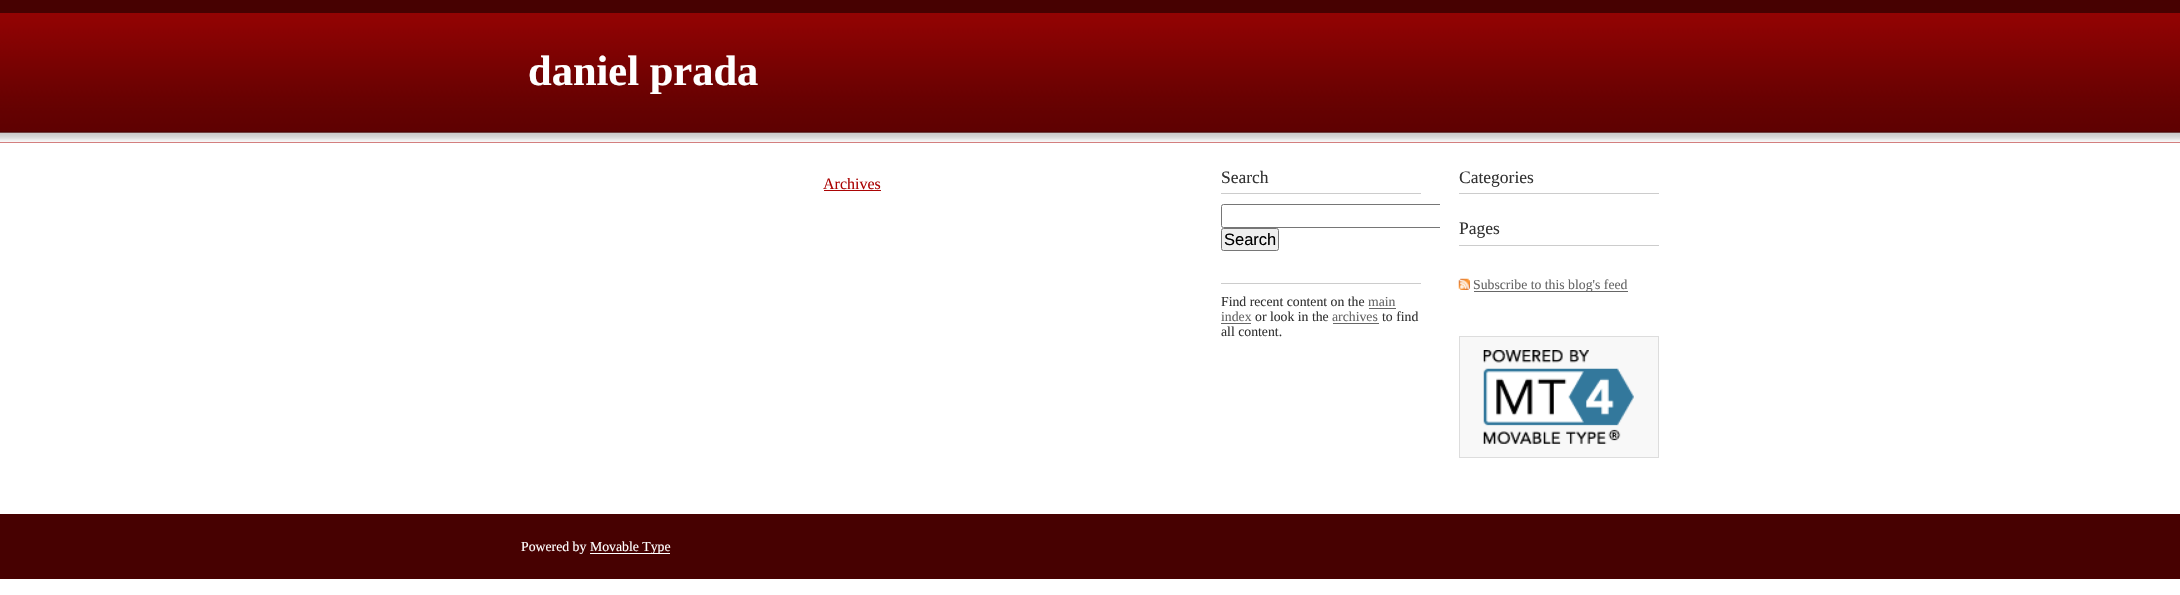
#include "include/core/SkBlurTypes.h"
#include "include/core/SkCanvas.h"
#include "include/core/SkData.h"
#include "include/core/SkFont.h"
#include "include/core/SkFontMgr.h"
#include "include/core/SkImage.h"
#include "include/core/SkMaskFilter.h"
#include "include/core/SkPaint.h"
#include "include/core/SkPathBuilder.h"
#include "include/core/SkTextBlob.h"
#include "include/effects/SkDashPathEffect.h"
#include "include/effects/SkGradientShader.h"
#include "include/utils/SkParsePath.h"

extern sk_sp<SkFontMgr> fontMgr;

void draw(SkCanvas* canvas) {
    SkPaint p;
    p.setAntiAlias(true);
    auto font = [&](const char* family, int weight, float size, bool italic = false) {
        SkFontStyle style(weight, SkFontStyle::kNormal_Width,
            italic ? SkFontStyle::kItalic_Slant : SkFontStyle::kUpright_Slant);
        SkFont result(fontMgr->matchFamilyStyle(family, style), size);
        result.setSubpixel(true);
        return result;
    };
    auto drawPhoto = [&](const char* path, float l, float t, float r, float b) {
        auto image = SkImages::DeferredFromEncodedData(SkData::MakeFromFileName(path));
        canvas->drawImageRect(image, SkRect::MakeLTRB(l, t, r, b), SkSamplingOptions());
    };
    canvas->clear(0xFFFFFFFF);
    p.setColor(0xFFAD0404);
    canvas->drawRect(SkRect::MakeLTRB(0, 142, 2180, 143), p);
    drawPhoto("media/1.png", 0, 13, 2180, 143);
    p.setColor(0xFF470101);
    canvas->drawRect(SkRect::MakeLTRB(0, 0, 2180, 13), p);
    auto font1 = font("Liberation Serif", 700, 42.5f);
    p.setColor(0xFFFFFFFF);
    canvas->drawString("daniel prada", 528, 85, font1, p);
    auto font2 = font("Liberation Serif", 400, 16);
    p.setColor(0xFFAB0404);
    canvas->drawString("Archives", 823, 189, font2, p);
    canvas->drawRect(SkRect::MakeLTRB(824, 190, 881, 191), p);
    p.setColor(0xFFCCCCCC);
    canvas->drawRect(SkRect::MakeLTRB(1221, 193, 1421, 194), p);
    auto font3 = font("Liberation Serif", 400, 17.5f);
    p.setColor(0xFF333333);
    canvas->drawString("Search", 1221, 183, font3, p);
    canvas->save();
    canvas->clipRect(SkRect::MakeLTRB(1203, 168, 1440, 276));
    p.setStyle(SkPaint::kStroke_Style);
    p.setStrokeWidth(1);
    p.setColor(0xFF767676);
    canvas->drawRoundRect(SkRect::MakeLTRB(1221.5f, 204.5f, 1447.5f, 227.5f), 2, 2, p);
    canvas->restore();
    p.setStyle(SkPaint::kFill_Style);
    p.setColor(0xFFEFEFEF);
    canvas->drawRoundRect(SkRect::MakeLTRB(1221.5f, 228.5f, 1278.5f, 250.5f), 2, 2, p);
    p.setStyle(SkPaint::kStroke_Style);
    p.setColor(0xFF767676);
    canvas->drawRoundRect(SkRect::MakeLTRB(1221.5f, 228.5f, 1278.5f, 250.5f), 2, 2, p);
    auto font4 = font("Liberation Sans", 400, 16.5f);
    p.setStyle(SkPaint::kFill_Style);
    p.setColor(0xFF000000);
    canvas->drawString("Search", 1224, 245, font4, p);
    p.setColor(0xFFCCCCCC);
    canvas->drawRect(SkRect::MakeLTRB(1221, 283, 1421, 284), p);
    auto font5 = font("Liberation Serif", 400, 13.75f);
    p.setColor(0xFF333333);
    canvas->drawString("Find recent content on the", 1221, 306, font5, p);
    p.setColor(0xFF666666);
    canvas->drawString("main", 1368, 306, font5, p);
    canvas->drawRect(SkRect::MakeLTRB(1369, 308, 1396, 309), p);
    canvas->drawString("index", 1221, 321, font5, p);
    canvas->drawRect(SkRect::MakeLTRB(1221, 323, 1251, 324), p);
    p.setColor(0xFF333333);
    canvas->drawString("or look in the", 1255, 321, font5, p);
    p.setColor(0xFF666666);
    canvas->drawString("archives", 1332, 321, font5, p);
    canvas->drawRect(SkRect::MakeLTRB(1333, 323, 1379, 324), p);
    p.setColor(0xFF333333);
    canvas->drawString("to find", 1382, 321, font5, p);
    canvas->drawString("all content.", 1221, 336, font5, p);
    p.setColor(0xFFCCCCCC);
    canvas->drawRect(SkRect::MakeLTRB(1459, 193, 1659, 194), p);
    p.setColor(0xFF333333);
    canvas->drawString("Categories", 1459, 183, font3, p);
    p.setColor(0xFFCCCCCC);
    canvas->drawRect(SkRect::MakeLTRB(1459, 245, 1659, 246), p);
    p.setColor(0xFF333333);
    canvas->drawString("Pages", 1459, 234, font3, p);
    drawPhoto("media/2.png", 1458, 278, 1470, 290);
    p.setColor(0xFF666666);
    canvas->drawRect(SkRect::MakeLTRB(1474, 291, 1628, 292), p);
    canvas->drawString("Subscribe to this blog's feed", 1473, 289, font5, p);
    p.setColor(0xFFF8F8F8);
    canvas->drawRect(SkRect::MakeLTRB(1459.5f, 336.5f, 1658.5f, 457.5f), p);
    p.setStyle(SkPaint::kStroke_Style);
    p.setColor(0xFFDDDDDD);
    canvas->drawRect(SkRect::MakeLTRB(1459.5f, 336.5f, 1658.5f, 457.5f), p);
    drawPhoto("media/3.png", 1483, 350, 1634, 444);
    p.setStyle(SkPaint::kFill_Style);
    p.setColor(0xFF470101);
    canvas->drawRect(SkRect::MakeLTRB(0, 514, 2180, 579), p);
    p.setColor(0xFFFFFFFF);
    canvas->drawString("Powered by", 521, 551, font5, p);
    canvas->drawRect(SkRect::MakeLTRB(590, 553, 670, 554), p);
    canvas->drawString("Movable Type", 590, 551, font5, p);
}
